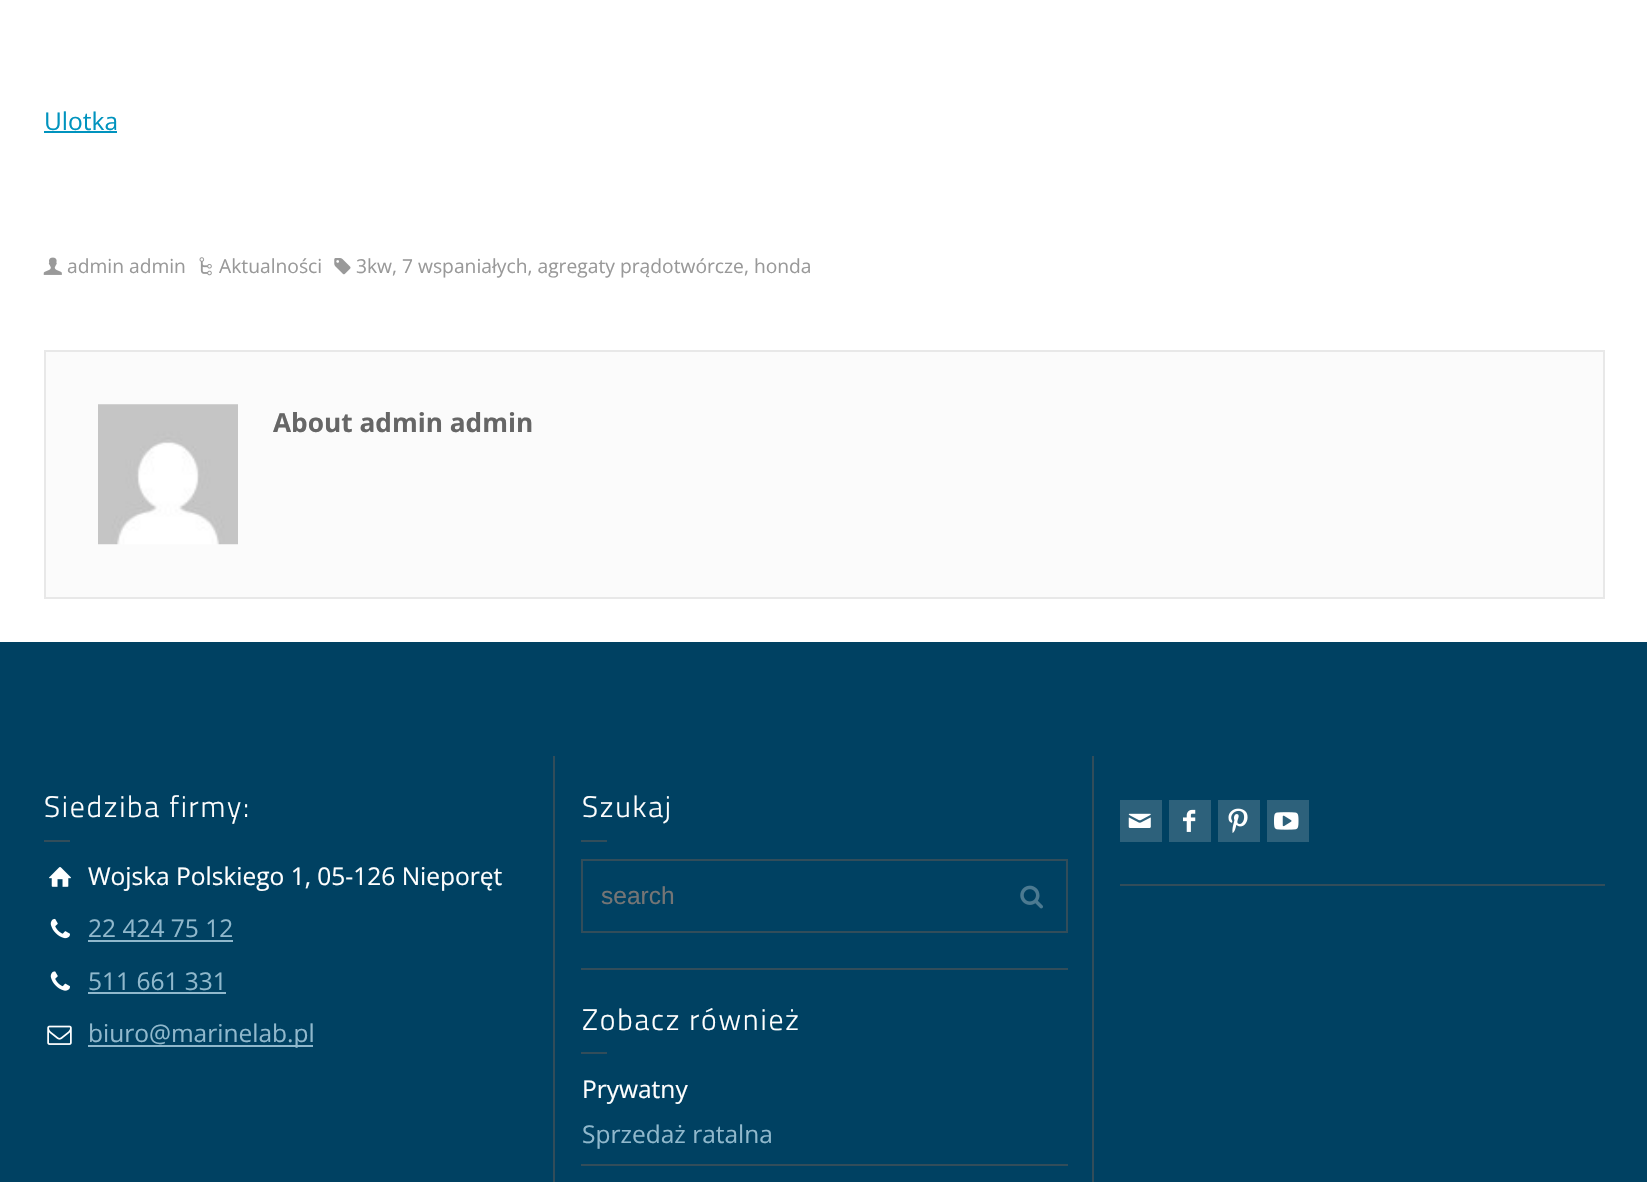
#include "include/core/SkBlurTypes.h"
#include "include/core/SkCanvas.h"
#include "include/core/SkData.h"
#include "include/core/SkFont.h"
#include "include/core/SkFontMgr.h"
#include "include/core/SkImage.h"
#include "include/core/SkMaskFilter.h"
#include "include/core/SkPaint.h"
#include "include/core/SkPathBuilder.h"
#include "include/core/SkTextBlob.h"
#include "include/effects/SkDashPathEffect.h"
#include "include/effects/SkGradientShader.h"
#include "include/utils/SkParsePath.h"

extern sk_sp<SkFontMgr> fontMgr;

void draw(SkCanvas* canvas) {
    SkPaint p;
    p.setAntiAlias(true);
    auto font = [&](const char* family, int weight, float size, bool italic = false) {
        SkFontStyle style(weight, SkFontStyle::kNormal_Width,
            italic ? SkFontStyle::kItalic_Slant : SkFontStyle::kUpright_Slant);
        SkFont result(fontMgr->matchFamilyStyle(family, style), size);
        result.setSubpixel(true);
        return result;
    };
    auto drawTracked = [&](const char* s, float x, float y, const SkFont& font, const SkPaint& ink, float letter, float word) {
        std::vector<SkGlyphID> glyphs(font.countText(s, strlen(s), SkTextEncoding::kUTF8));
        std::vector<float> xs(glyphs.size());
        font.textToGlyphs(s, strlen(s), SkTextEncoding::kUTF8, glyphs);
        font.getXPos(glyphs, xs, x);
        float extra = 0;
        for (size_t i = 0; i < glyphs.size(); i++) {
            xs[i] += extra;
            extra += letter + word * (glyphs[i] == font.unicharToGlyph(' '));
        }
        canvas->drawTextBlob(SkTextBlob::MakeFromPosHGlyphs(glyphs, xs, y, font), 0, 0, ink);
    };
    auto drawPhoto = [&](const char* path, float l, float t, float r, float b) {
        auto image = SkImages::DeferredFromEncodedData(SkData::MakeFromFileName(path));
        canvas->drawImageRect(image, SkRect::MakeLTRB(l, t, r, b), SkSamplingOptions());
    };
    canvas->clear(0xFF004162);
    p.setColor(0xFFFFFFFF);
    canvas->drawRect(SkRect::MakeLTRB(0, 0, 1647, 642), p);
    auto font1 = font("Open Sans", 400, 24.5f);
    p.setColor(0xFF0093BE);
    canvas->drawString("Ulotka", 44, 130, font1, p);
    canvas->drawRect(SkRect::MakeLTRB(44, 131, 117, 133), p);
    drawPhoto("media/1.png", 43, 257, 62, 275);
    auto font2 = font("Open Sans", 400, 19.25f);
    p.setColor(0xFF999999);
    canvas->drawString("admin admin", 67, 273, font2, p);
    drawPhoto("media/2.png", 199, 257, 212, 276);
    canvas->drawString("Aktualności", 219, 273, font2, p);
    drawPhoto("media/3.png", 334, 258, 351, 275);
    canvas->drawString("3kw, 7 wspaniałych, agregaty prądotwórcze, honda", 356, 273, font2, p);
    p.setColor(0xFFFBFBFB);
    canvas->drawRect(SkRect::MakeLTRB(45, 351, 1604, 598), p);
    p.setStyle(SkPaint::kStroke_Style);
    p.setStrokeWidth(2);
    p.setColor(0xFFE8E8E8);
    canvas->drawRect(SkRect::MakeLTRB(45, 351, 1604, 598), p);
    drawPhoto("media/4.png", 98, 404, 238, 545);
    auto font3 = font("Open Sans", 700, 26.25f);
    p.setStyle(SkPaint::kFill_Style);
    p.setColor(0xFF666666);
    canvas->drawString("About admin admin", 273, 432, font3, p);
    auto font4 = font("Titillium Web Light", 300, 29.75f);
    p.setColor(0xFFFFFFFF);
    drawTracked("Siedziba firmy:", 44, 817, font4, p, 1.75f, 0);
    p.setColor(0xFF324D5A);
    canvas->drawRect(SkRect::MakeLTRB(44, 840, 70, 842), p);
    drawPhoto("media/5.png", 49, 867, 71, 887);
    p.setColor(0xFFFFFFFF);
    canvas->drawString("Wojska Polskiego 1, 05-126 Nieporęt", 88, 885, font1, p);
    drawPhoto("media/6.png", 50, 918, 70, 939);
    p.setColor(0xFF90B8CC);
    canvas->drawString("22 424 75 12", 88, 937, font1, p);
    canvas->drawRect(SkRect::MakeLTRB(88, 940, 233, 942), p);
    drawPhoto("media/7.png", 50, 971, 70, 991);
    canvas->drawString("511 661 331", 88, 990, font1, p);
    canvas->drawRect(SkRect::MakeLTRB(88, 992, 226, 994), p);
    drawPhoto("media/8.png", 47, 1025, 72, 1045);
    canvas->drawRect(SkRect::MakeLTRB(88, 1045, 313, 1047), p);
    canvas->drawString("biuro@marinelab.pl", 88, 1042, font1, p);
    p.setColor(0xFF324D5A);
    canvas->drawRect(SkRect::MakeLTRB(553, 756, 555, 1182), p);
    p.setColor(0xFFFFFFFF);
    drawTracked("Szukaj", 582, 817, font4, p, 1.75f, 0);
    p.setColor(0xFF324D5A);
    canvas->drawRect(SkRect::MakeLTRB(581, 840, 607, 842), p);
    p.setStyle(SkPaint::kStroke_Style);
    canvas->drawRect(SkRect::MakeLTRB(582, 860, 1067, 932), p);
    auto font5 = font("Liberation Sans", 400, 24.5f);
    p.setStyle(SkPaint::kFill_Style);
    p.setColor(0xFF757575);
    canvas->drawString("search", 601, 904, font5, p);
    drawPhoto("media/9.png", 1020, 885, 1043, 909);
    p.setColor(0xFF324D5A);
    canvas->drawRect(SkRect::MakeLTRB(581, 968, 1068, 970), p);
    p.setColor(0xFFFFFFFF);
    drawTracked("Zobacz również", 582, 1030, font4, p, 1.75f, 0);
    p.setColor(0xFF324D5A);
    canvas->drawRect(SkRect::MakeLTRB(581, 1052, 607, 1054), p);
    p.setColor(0xFFFFFFFF);
    canvas->drawString("Prywatny", 582, 1098, font1, p);
    p.setColor(0xFF324D5A);
    canvas->drawRect(SkRect::MakeLTRB(581, 1164, 1068, 1166), p);
    p.setColor(0xFF90B8CC);
    canvas->drawString("Sprzedaż ratalna", 582, 1143, font1, p);
    p.setColor(0xFF324D5A);
    canvas->drawRect(SkRect::MakeLTRB(1092, 756, 1094, 1182), p);
    p.setColor(0xFF2D617B);
    canvas->drawRect(SkRect::MakeLTRB(1120, 800, 1162, 842), p);
    drawPhoto("media/10.png", 1128, 813, 1151, 828);
    canvas->drawRect(SkRect::MakeLTRB(1169, 800, 1211, 842), p);
    drawPhoto("media/11.png", 1183, 809, 1196, 832);
    canvas->drawRect(SkRect::MakeLTRB(1218, 800, 1260, 842), p);
    drawPhoto("media/12.png", 1228, 808, 1248, 833);
    canvas->drawRect(SkRect::MakeLTRB(1267, 800, 1309, 842), p);
    drawPhoto("media/13.png", 1274, 812, 1299, 830);
    p.setColor(0xFF324D5A);
    canvas->drawRect(SkRect::MakeLTRB(1120, 884, 1605, 886), p);
}
